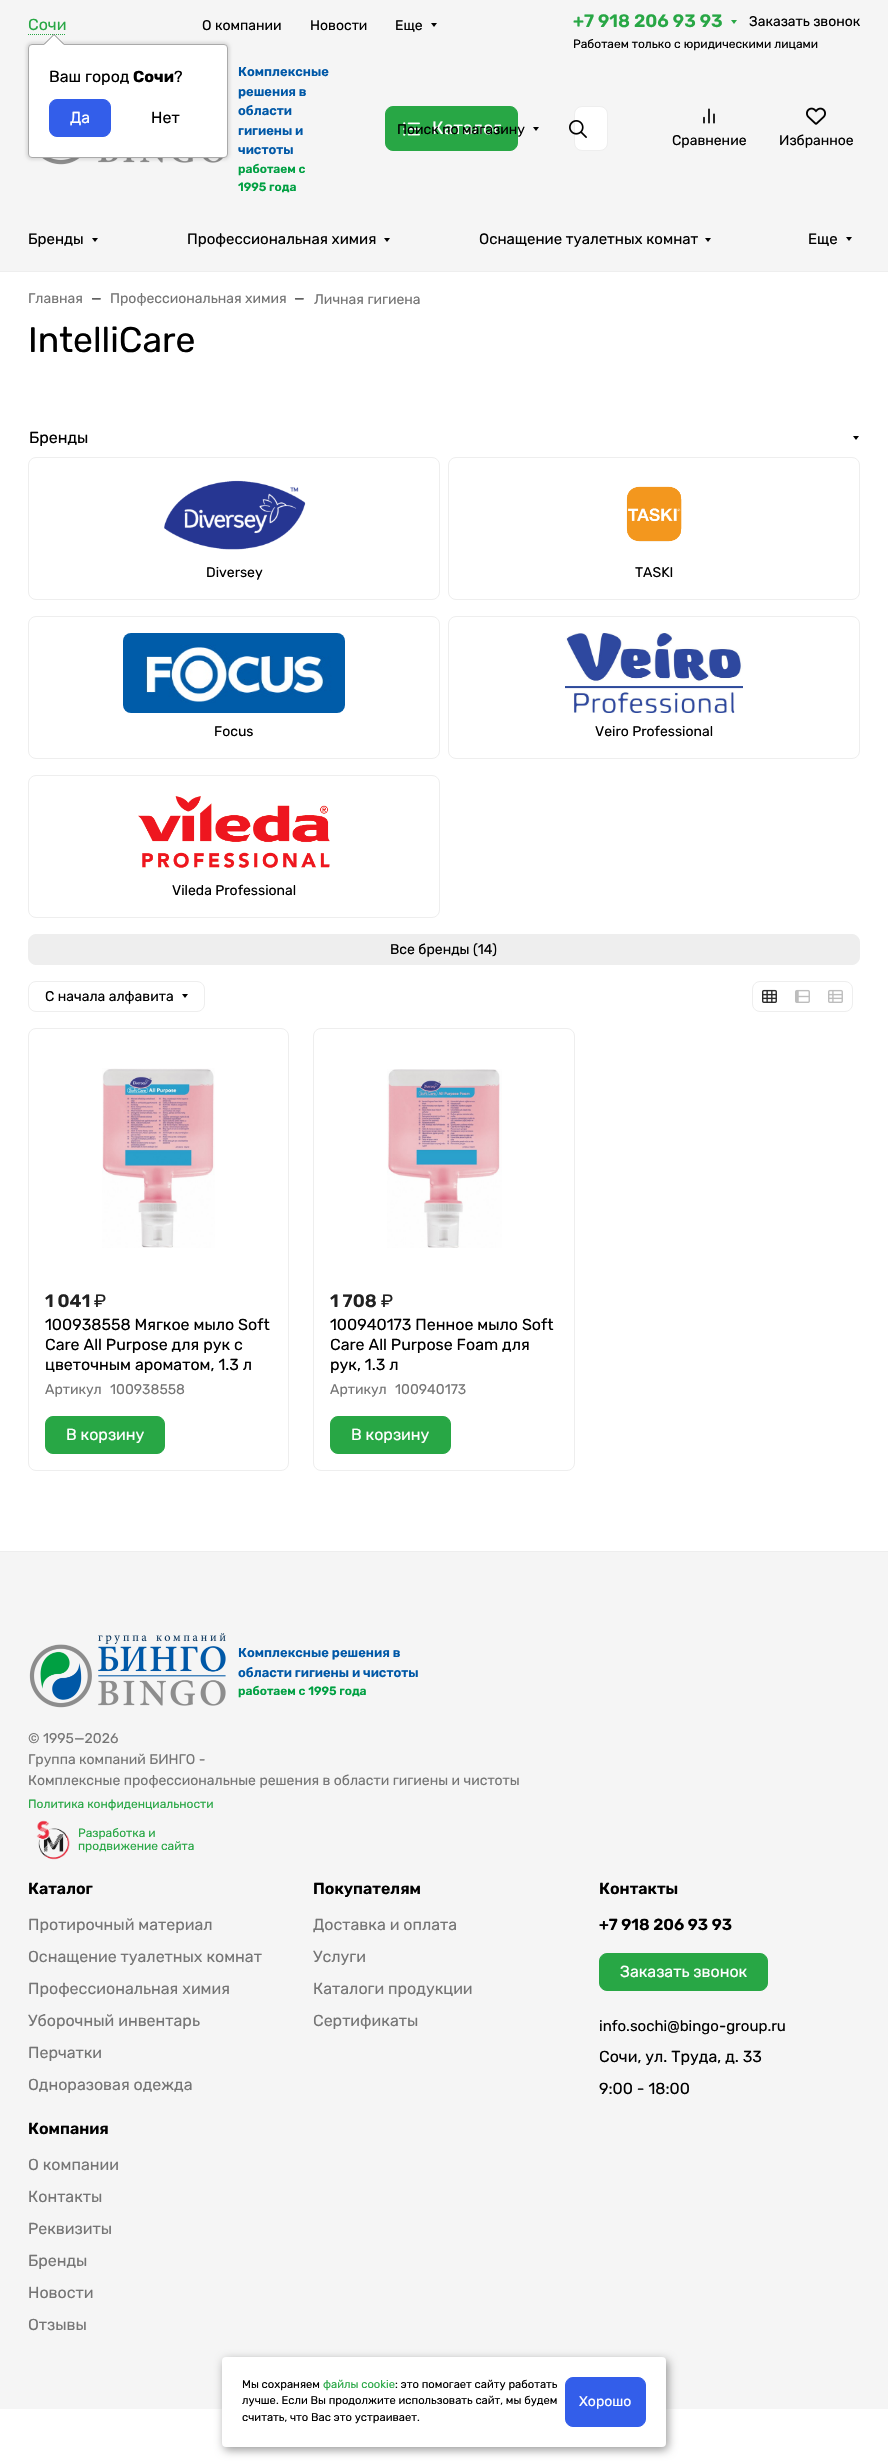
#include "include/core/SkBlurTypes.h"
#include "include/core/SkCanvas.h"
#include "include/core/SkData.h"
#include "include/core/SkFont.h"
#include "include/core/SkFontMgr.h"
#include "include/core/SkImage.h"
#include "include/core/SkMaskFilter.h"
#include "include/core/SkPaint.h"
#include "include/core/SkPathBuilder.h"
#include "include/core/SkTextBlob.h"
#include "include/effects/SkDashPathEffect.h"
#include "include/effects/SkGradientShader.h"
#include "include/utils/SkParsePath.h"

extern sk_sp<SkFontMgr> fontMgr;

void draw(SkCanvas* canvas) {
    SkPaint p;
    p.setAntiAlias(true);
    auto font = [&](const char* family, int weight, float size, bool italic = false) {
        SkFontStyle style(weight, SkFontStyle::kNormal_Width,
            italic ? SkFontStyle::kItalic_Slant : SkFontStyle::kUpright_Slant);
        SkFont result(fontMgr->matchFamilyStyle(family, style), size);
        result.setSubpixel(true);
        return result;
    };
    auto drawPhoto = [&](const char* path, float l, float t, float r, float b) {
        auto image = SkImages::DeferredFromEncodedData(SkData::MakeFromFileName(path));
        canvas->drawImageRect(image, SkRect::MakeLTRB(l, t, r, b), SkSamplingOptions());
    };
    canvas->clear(0xFFFFFFFF);
    p.setColor(0xFFF5F5F5);
    canvas->drawRect(SkRect::MakeLTRB(0, 0, 888, 271), p);
    p.setColor(0xFFEEEEEE);
    canvas->drawRect(SkRect::MakeLTRB(0, 271, 888, 272), p);
    auto font1 = font("Rubik", 300, 16);
    p.setColor(0xFF28A745);
    canvas->drawString("Сочи", 28, 30, font1, p);
    p.setStyle(SkPaint::kStroke_Style);
    p.setStrokeWidth(1);
    p.setPathEffect(SkDashPathEffect::Make({{1, 1}}, 0));
    canvas->drawPath(SkPathBuilder().moveTo(28, 34.5f).lineTo(66, 34.5f).detach(), p);
    p.setPathEffect(nullptr);
    drawPhoto("media/1.png", 42, 158, 223, 165);
    p.setStyle(SkPaint::kFill_Style);
    p.setColor(0x1A000000);
    p.setMaskFilter(SkMaskFilter::MakeBlur(kNormal_SkBlurStyle, 1.5f));
    canvas->drawRoundRect(SkRect::MakeLTRB(26, 42, 230, 160), 6, 6, p);
    p.setMaskFilter(nullptr);
    p.setColor(0xFFFFFFFF);
    canvas->drawRoundRect(SkRect::MakeLTRB(28.5f, 44.5f, 227.5f, 157.5f), 3.5f, 3.5f, p);
    p.setStyle(SkPaint::kStroke_Style);
    p.setColor(0xFFAAAAAA);
    canvas->drawRoundRect(SkRect::MakeLTRB(28.5f, 44.5f, 227.5f, 157.5f), 3.5f, 3.5f, p);
    p.setStyle(SkPaint::kFill_Style);
    p.setColor(0xFF808080);
    canvas->drawPath(SkPathBuilder().moveTo(64, 44).lineTo(44, 44).lineTo(54, 34).close().detach(), p);
    p.setColor(0xFFFFFFFF);
    canvas->drawPath(SkPathBuilder().moveTo(64, 45).lineTo(44, 45).lineTo(54, 35).close().detach(), p);
    p.setColor(0xFF000000);
    canvas->drawString("Ваш город", 49, 82, font1, p);
    auto font2 = font("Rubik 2", 300, 16);
    canvas->drawString("Сочи", 133, 82, font2, p);
    canvas->drawString("?", 174, 82, font1, p);
    p.setColor(0xFF335EEA);
    canvas->drawRoundRect(SkRect::MakeLTRB(49.5f, 99.5f, 110.5f, 136.5f), 7.5f, 7.5f, p);
    p.setStyle(SkPaint::kStroke_Style);
    canvas->drawRoundRect(SkRect::MakeLTRB(49.5f, 99.5f, 110.5f, 136.5f), 7.5f, 7.5f, p);
    p.setStyle(SkPaint::kFill_Style);
    p.setColor(0xFFFFFFFF);
    canvas->drawString("Да", 70, 123, font1, p);
    p.setColor(0xFF000000);
    canvas->drawString("Нет", 151, 123, font1, p);
    auto font3 = font("Rubik", 300, 14);
    {
        const struct { const char* s; float x, y; } items[] = {
            {"О компании", 202, 30},
            {"Новости", 310, 30},
            {"Еще", 395, 30},
        };
        for (auto [s, x, y] : items) {
            canvas->drawString(s, x, y, font3, p);
        }
    }
    canvas->drawPath(SkPathBuilder().moveTo(431, 23).lineTo(437, 23).lineTo(434, 27).close().detach(), p);
    auto font4 = font("Rubik", 600, 18);
    p.setColor(0xFF28A745);
    canvas->drawString("+7 918 206 93 93", 573, 27, font4, p);
    canvas->drawPath(SkPathBuilder().moveTo(731, 20).lineTo(737, 20).lineTo(734, 24).close().detach(), p);
    p.setColor(0xFF000000);
    canvas->drawString("Заказать звонок", 749, 26, font3, p);
    auto font5 = font("Rubik", 300, 12);
    canvas->drawString("Работаем только с юридическими лицами", 573, 48, font5, p);
    auto font6 = font("Rubik", 600, 13);
    p.setColor(0xFF0058A7);
    {
        const struct { const char* s; float x, y; } items[] = {
            {"Комплексные", 238, 76},
            {"решения в", 238, 96},
            {"области", 238, 115},
            {"гигиены и", 238, 135},
            {"чистоты", 238, 154},
        };
        for (auto [s, x, y] : items) {
            canvas->drawString(s, x, y, font6, p);
        }
    }
    auto font7 = font("Rubik", 600, 12);
    p.setColor(0xFF00A042);
    canvas->drawString("работаем с", 238, 173, font7, p);
    canvas->drawString("1995 года", 238, 191, font7, p);
    p.setColor(0xFF28A745);
    canvas->drawRoundRect(SkRect::MakeLTRB(385.5f, 106.5f, 517.5f, 150.5f), 7.5f, 7.5f, p);
    p.setStyle(SkPaint::kStroke_Style);
    canvas->drawRoundRect(SkRect::MakeLTRB(385.5f, 106.5f, 517.5f, 150.5f), 7.5f, 7.5f, p);
    drawPhoto("media/2.png", 403, 122, 420, 136);
    auto font8 = font("Rubik", 300, 18);
    p.setStyle(SkPaint::kFill_Style);
    p.setColor(0xFFFFFFFF);
    canvas->drawString("Каталог", 432, 134, font8, p);
    p.setColor(0xFF000000);
    canvas->drawString("Поиск по магазину", 397, 134, font3, p);
    canvas->drawPath(SkPathBuilder().moveTo(533, 127).lineTo(539, 127).lineTo(536, 131).close().detach(), p);
    p.setColor(0xFFFFFFFF);
    canvas->drawRoundRect(SkRect::MakeLTRB(574.5f, 106.5f, 607.5f, 150.5f), 7.5f, 7.5f, p);
    p.setStyle(SkPaint::kStroke_Style);
    p.setColor(0xFFEEEEEE);
    canvas->drawRoundRect(SkRect::MakeLTRB(574.5f, 106.5f, 607.5f, 150.5f), 7.5f, 7.5f, p);
    drawPhoto("media/3.png", 569, 120, 587, 138);
    drawPhoto("media/4.png", 703, 108, 715, 124);
    p.setStyle(SkPaint::kFill_Style);
    p.setColor(0xFF000000);
    canvas->drawString("Сравнение", 672, 145, font3, p);
    drawPhoto("media/5.png", 806, 107, 826, 125);
    canvas->drawString("Избранное", 779, 145, font3, p);
    auto font9 = font("Rubik", 300, 15);
    canvas->drawString("Бренды", 28, 244, font9, p);
    canvas->drawPath(SkPathBuilder().moveTo(92, 238).lineTo(98, 238).lineTo(95, 242).close().detach(), p);
    canvas->drawString("Профессиональная химия", 187, 244, font9, p);
    canvas->drawPath(SkPathBuilder().moveTo(384, 238).lineTo(390, 238).lineTo(387, 242).close().detach(), p);
    canvas->drawString("Оснащение туалетных комнат", 479, 244, font9, p);
    canvas->drawPath(SkPathBuilder().moveTo(705, 238).lineTo(711, 238).lineTo(708, 242).close().detach(), p);
    canvas->drawString("Еще", 808, 244, font9, p);
    canvas->drawPath(SkPathBuilder().moveTo(846, 237).lineTo(852, 237).lineTo(849, 241).close().detach(), p);
    p.setColor(0xFF757575);
    canvas->drawString("Главная", 28, 303, font3, p);
    p.setColor(0xFF404040);
    canvas->drawString("—", 91, 303, font3, p);
    p.setColor(0xFF757575);
    canvas->drawString("Профессиональная химия", 110, 303, font3, p);
    p.setColor(0xFF404040);
    canvas->drawString("—", 294, 303, font3, p);
    p.setColor(0xFF757575);
    canvas->drawString("Личная гигиена", 314, 304, font3, p);
    auto font10 = font("Rubik", 300, 35.5f);
    p.setColor(0xFF000000);
    canvas->drawString("IntelliCare", 28, 352, font10, p);
    canvas->drawString("Бренды", 29, 443, font1, p);
    canvas->drawPath(SkPathBuilder().moveTo(853, 436).lineTo(859, 436).lineTo(856, 440).close().detach(), p);
    p.setStyle(SkPaint::kStroke_Style);
    p.setColor(0xFFEEEEEE);
    canvas->drawRoundRect(SkRect::MakeLTRB(28.5f, 457.5f, 439.5f, 599.5f), 7.5f, 7.5f, p);
    drawPhoto("media/6.png", 164, 480, 306, 550);
    p.setStyle(SkPaint::kFill_Style);
    p.setColor(0xFF000000);
    canvas->drawString("Diversey", 206, 577, font3, p);
    p.setStyle(SkPaint::kStroke_Style);
    p.setColor(0xFFEEEEEE);
    canvas->drawRoundRect(SkRect::MakeLTRB(448.5f, 457.5f, 859.5f, 599.5f), 7.5f, 7.5f, p);
    drawPhoto("media/7.png", 626, 486, 682, 542);
    p.setStyle(SkPaint::kFill_Style);
    p.setColor(0xFF000000);
    canvas->drawString("TASKI", 635, 577, font3, p);
    p.setStyle(SkPaint::kStroke_Style);
    p.setColor(0xFFEEEEEE);
    canvas->drawRoundRect(SkRect::MakeLTRB(28.5f, 616.5f, 439.5f, 758.5f), 7.5f, 7.5f, p);
    drawPhoto("media/8.png", 123, 633, 345, 713);
    p.setStyle(SkPaint::kFill_Style);
    p.setColor(0xFF000000);
    canvas->drawString("Focus", 214, 736, font3, p);
    p.setStyle(SkPaint::kStroke_Style);
    p.setColor(0xFFEEEEEE);
    canvas->drawRoundRect(SkRect::MakeLTRB(448.5f, 616.5f, 859.5f, 758.5f), 7.5f, 7.5f, p);
    drawPhoto("media/9.png", 565, 633, 743, 713);
    p.setStyle(SkPaint::kFill_Style);
    p.setColor(0xFF000000);
    canvas->drawString("Veiro Professional", 595, 736, font3, p);
    p.setStyle(SkPaint::kStroke_Style);
    p.setColor(0xFFEEEEEE);
    canvas->drawRoundRect(SkRect::MakeLTRB(28.5f, 775.5f, 439.5f, 917.5f), 7.5f, 7.5f, p);
    drawPhoto("media/10.png", 138, 796, 330, 868);
    p.setStyle(SkPaint::kFill_Style);
    p.setColor(0xFF000000);
    canvas->drawString("Vileda Professional", 172, 895, font3, p);
    p.setColor(0xFFEEEEEE);
    canvas->drawRoundRect(SkRect::MakeLTRB(28.5f, 934.5f, 859.5f, 964.5f), 7.5f, 7.5f, p);
    p.setStyle(SkPaint::kStroke_Style);
    canvas->drawRoundRect(SkRect::MakeLTRB(28.5f, 934.5f, 859.5f, 964.5f), 7.5f, 7.5f, p);
    p.setStyle(SkPaint::kFill_Style);
    p.setColor(0xFF000000);
    canvas->drawString("Все бренды (14)", 390, 954, font3, p);
    p.setStyle(SkPaint::kStroke_Style);
    p.setColor(0xFFEEEEEE);
    canvas->drawRoundRect(SkRect::MakeLTRB(28.5f, 981.5f, 204.5f, 1011.5f), 7.5f, 7.5f, p);
    p.setStyle(SkPaint::kFill_Style);
    p.setColor(0xFF000000);
    canvas->drawString("С начала алфавита", 45, 1001, font3, p);
    canvas->drawPath(SkPathBuilder().moveTo(182, 994).lineTo(188, 994).lineTo(185, 998).close().detach(), p);
    p.setStyle(SkPaint::kStroke_Style);
    p.setColor(0xFFEEEEEE);
    canvas->drawRoundRect(SkRect::MakeLTRB(752.5f, 981.5f, 852.5f, 1011.5f), 7.5f, 7.5f, p);
    drawPhoto("media/11.png", 762, 989, 777, 1003);
    drawPhoto("media/12.png", 795, 989, 810, 1003);
    drawPhoto("media/13.png", 828, 989, 843, 1003);
    canvas->drawRoundRect(SkRect::MakeLTRB(28.5f, 1028.5f, 288.5f, 1470.5f), 7.5f, 7.5f, p);
    drawPhoto("media/14.png", 102, 1068, 215, 1248);
    p.setStyle(SkPaint::kFill_Style);
    p.setColor(0xFF212121);
    canvas->drawString("1 041", 45, 1307, font4, p);
    auto font11 = font("Rubik", 400, 18);
    canvas->drawString("₽", 94, 1307, font11, p);
    p.setColor(0xFF000000);
    {
        const struct { const char* s; float x, y; } items[] = {
            {"100938558 Мягкое мыло Soft", 45, 1330},
            {"Care All Purpose для рук с", 45, 1350},
            {"цветочным ароматом, 1.3 л", 45, 1370},
        };
        for (auto [s, x, y] : items) {
            canvas->drawString(s, x, y, font1, p);
        }
    }
    p.setColor(0xFF757575);
    canvas->drawString("Артикул", 45, 1394, font3, p);
    canvas->drawString("100938558", 110, 1394, font3, p);
    p.setColor(0xFF28A745);
    canvas->drawRoundRect(SkRect::MakeLTRB(45.5f, 1416.5f, 164.5f, 1453.5f), 7.5f, 7.5f, p);
    p.setStyle(SkPaint::kStroke_Style);
    canvas->drawRoundRect(SkRect::MakeLTRB(45.5f, 1416.5f, 164.5f, 1453.5f), 7.5f, 7.5f, p);
    p.setStyle(SkPaint::kFill_Style);
    p.setColor(0xFFFFFFFF);
    canvas->drawString("В корзину", 66, 1440, font1, p);
    p.setStyle(SkPaint::kStroke_Style);
    p.setColor(0xFFEEEEEE);
    canvas->drawRoundRect(SkRect::MakeLTRB(313.5f, 1028.5f, 574.5f, 1470.5f), 7.5f, 7.5f, p);
    drawPhoto("media/15.png", 387, 1069, 502, 1248);
    p.setStyle(SkPaint::kFill_Style);
    p.setColor(0xFF212121);
    canvas->drawString("1 708", 330, 1307, font4, p);
    canvas->drawString("₽", 381, 1307, font11, p);
    p.setColor(0xFF000000);
    {
        const struct { const char* s; float x, y; } items[] = {
            {"100940173 Пенное мыло Soft", 330, 1330},
            {"Care All Purpose Foam для", 330, 1350},
            {"рук, 1.3 л", 330, 1370},
        };
        for (auto [s, x, y] : items) {
            canvas->drawString(s, x, y, font1, p);
        }
    }
    p.setColor(0xFF757575);
    canvas->drawString("Артикул", 330, 1394, font3, p);
    canvas->drawString("100940173", 395, 1394, font3, p);
    p.setColor(0xFF28A745);
    canvas->drawRoundRect(SkRect::MakeLTRB(330.5f, 1416.5f, 450.5f, 1453.5f), 7.5f, 7.5f, p);
    p.setStyle(SkPaint::kStroke_Style);
    canvas->drawRoundRect(SkRect::MakeLTRB(330.5f, 1416.5f, 450.5f, 1453.5f), 7.5f, 7.5f, p);
    p.setStyle(SkPaint::kFill_Style);
    p.setColor(0xFFFFFFFF);
    canvas->drawString("В корзину", 351, 1440, font1, p);
    p.setColor(0xFFF5F5F5);
    canvas->drawRect(SkRect::MakeLTRB(0, 1552, 888, 2409), p);
    p.setColor(0xFFEEEEEE);
    canvas->drawRect(SkRect::MakeLTRB(0, 1551, 888, 1552), p);
    drawPhoto("media/16.png", 29, 1633, 226, 1708);
    p.setColor(0xFF0058A7);
    canvas->drawString("Комплексные решения в", 238, 1657, font6, p);
    canvas->drawString("области гигиены и чистоты", 238, 1677, font6, p);
    p.setColor(0xFF00A042);
    canvas->drawString("работаем с 1995 года", 238, 1695, font7, p);
    p.setColor(0xFF757575);
    {
        const struct { const char* s; float x, y; } items[] = {
            {"© 1995—2026", 28, 1743},
            {"Группа компаний БИНГО -", 28, 1764},
            {"Комплексные профессиональные решения в области гигиены и чистоты", 28, 1785},
        };
        for (auto [s, x, y] : items) {
            canvas->drawString(s, x, y, font3, p);
        }
    }
    p.setColor(0xFF28A745);
    canvas->drawString("Политика конфиденциальности", 28, 1808, font5, p);
    drawPhoto("media/17.png", 36, 1820, 70, 1860);
    canvas->drawString("Разработка и", 78, 1837, font5, p);
    canvas->drawString("продвижение сайта", 78, 1850, font5, p);
    auto font12 = font("Rubik", 600, 16);
    p.setColor(0xFF000000);
    canvas->drawString("Каталог", 28, 1894, font12, p);
    p.setColor(0xFF757575);
    {
        const struct { const char* s; float x, y; } items[] = {
            {"Протирочный материал", 28, 1930},
            {"Оснащение туалетных комнат", 28, 1962},
            {"Профессиональная химия", 28, 1994},
            {"Уборочный инвентарь", 28, 2026},
            {"Перчатки", 28, 2058},
            {"Одноразовая одежда", 28, 2090},
        };
        for (auto [s, x, y] : items) {
            canvas->drawString(s, x, y, font1, p);
        }
    }
    p.setColor(0xFF000000);
    canvas->drawString("Покупателям", 313, 1894, font12, p);
    p.setColor(0xFF757575);
    {
        const struct { const char* s; float x, y; } items[] = {
            {"Доставка и оплата", 313, 1930},
            {"Услуги", 313, 1962},
            {"Каталоги продукции", 313, 1994},
            {"Сертификаты", 313, 2026},
        };
        for (auto [s, x, y] : items) {
            canvas->drawString(s, x, y, font1, p);
        }
    }
    p.setColor(0xFF000000);
    canvas->drawString("Компания", 28, 2134, font12, p);
    p.setColor(0xFF757575);
    {
        const struct { const char* s; float x, y; } items[] = {
            {"О компании", 28, 2170},
            {"Контакты", 28, 2202},
            {"Реквизиты", 28, 2234},
            {"Бренды", 28, 2266},
            {"Новости", 28, 2298},
            {"Отзывы", 28, 2330},
        };
        for (auto [s, x, y] : items) {
            canvas->drawString(s, x, y, font1, p);
        }
    }
    p.setColor(0xFF000000);
    canvas->drawString("Контакты", 599, 1894, font12, p);
    canvas->drawString("+7 918 206 93 93", 599, 1930, font12, p);
    p.setColor(0xFF28A745);
    canvas->drawRoundRect(SkRect::MakeLTRB(599.5f, 1953.5f, 767.5f, 1990.5f), 7.5f, 7.5f, p);
    p.setStyle(SkPaint::kStroke_Style);
    canvas->drawRoundRect(SkRect::MakeLTRB(599.5f, 1953.5f, 767.5f, 1990.5f), 7.5f, 7.5f, p);
    p.setStyle(SkPaint::kFill_Style);
    p.setColor(0xFFFFFFFF);
    canvas->drawString("Заказать звонок", 620, 1977, font1, p);
    p.setColor(0xFF000000);
    canvas->drawString("info.sochi@bingo-group.ru", 599, 2031, font9, p);
    canvas->drawString("Сочи, ул. Труда, д. 33", 599, 2062, font1, p);
    canvas->drawString("9:00 - 18:00", 599, 2094, font1, p);
    p.setColor(0x66000000);
    p.setMaskFilter(SkMaskFilter::MakeBlur(kNormal_SkBlurStyle, 5));
    canvas->drawRoundRect(SkRect::MakeLTRB(224, 2360, 668, 2450), 4, 4, p);
    p.setMaskFilter(nullptr);
    p.setColor(0xFFFFFFFF);
    canvas->drawRoundRect(SkRect::MakeLTRB(222, 2357, 666, 2447), 4, 4, p);
    auto font13 = font("Rubik", 300, 11.2f);
    p.setColor(0xFF000000);
    canvas->drawString("Мы сохраняем", 242, 2388, font13, p);
    p.setColor(0xFF28A745);
    canvas->drawString("файлы cookie", 323, 2388, font13, p);
    p.setColor(0xFF000000);
    {
        const struct { const char* s; float x, y; } items[] = {
            {": это помогает сайту работать", 395, 2388},
            {"лучше. Если Вы продолжите использовать сайт, мы будем", 242, 2404},
            {"считать, что Вас это устраивает.", 242, 2421},
        };
        for (auto [s, x, y] : items) {
            canvas->drawString(s, x, y, font13, p);
        }
    }
    p.setColor(0xFF335EEA);
    canvas->drawRoundRect(SkRect::MakeLTRB(565.5f, 2377.5f, 645.5f, 2426.5f), 7.5f, 7.5f, p);
    p.setStyle(SkPaint::kStroke_Style);
    canvas->drawRoundRect(SkRect::MakeLTRB(565.5f, 2377.5f, 645.5f, 2426.5f), 7.5f, 7.5f, p);
    p.setStyle(SkPaint::kFill_Style);
    p.setColor(0xFFFFFFFF);
    canvas->drawString("Хорошо", 579, 2406, font3, p);
}
